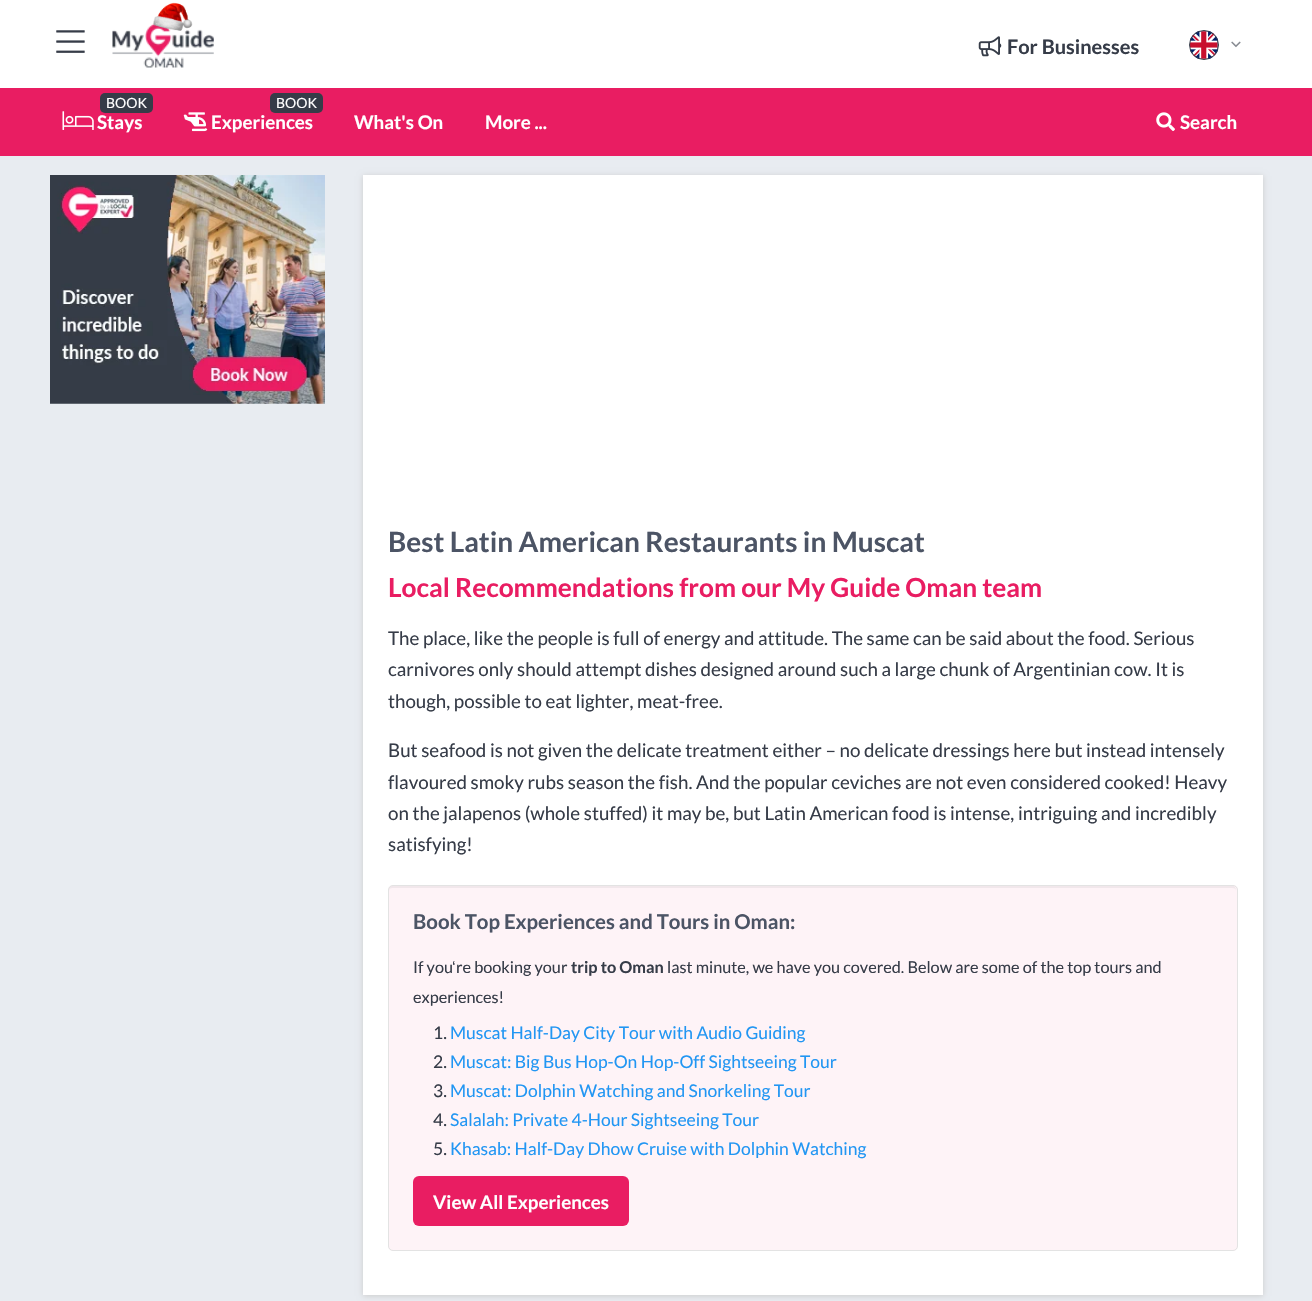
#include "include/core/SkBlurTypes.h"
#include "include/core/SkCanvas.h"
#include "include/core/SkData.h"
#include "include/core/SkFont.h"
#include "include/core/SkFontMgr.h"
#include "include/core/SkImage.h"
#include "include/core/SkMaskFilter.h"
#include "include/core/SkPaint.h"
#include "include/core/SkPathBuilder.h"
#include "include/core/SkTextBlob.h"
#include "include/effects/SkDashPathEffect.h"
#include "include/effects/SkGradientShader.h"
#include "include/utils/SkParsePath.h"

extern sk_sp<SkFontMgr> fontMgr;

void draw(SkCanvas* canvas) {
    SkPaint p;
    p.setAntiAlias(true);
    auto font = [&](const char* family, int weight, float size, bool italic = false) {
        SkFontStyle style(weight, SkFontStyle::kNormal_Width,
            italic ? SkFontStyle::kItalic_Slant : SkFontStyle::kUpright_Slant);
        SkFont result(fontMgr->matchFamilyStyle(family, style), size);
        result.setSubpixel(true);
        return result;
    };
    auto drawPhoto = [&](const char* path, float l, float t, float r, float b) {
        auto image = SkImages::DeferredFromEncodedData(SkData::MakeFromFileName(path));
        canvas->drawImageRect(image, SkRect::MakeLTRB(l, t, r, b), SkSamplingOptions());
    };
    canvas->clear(0xFFFFFFFF);
    drawPhoto("media/1.png", 56, 30, 85, 53);
    drawPhoto("media/3.png", 112, 23, 214, 68);
    drawPhoto("media/2.png", 153, 2, 193, 31);
    drawPhoto("media/4.png", 978, 36, 1002, 57);
    auto font1 = font("Lato", 700, 20);
    p.setColor(0xFF363C48);
    canvas->drawString("For Businesses", 1007, 54, font1, p);
    drawPhoto("media/5.png", 1190, 31, 1218, 59);
    p.setStyle(SkPaint::kStroke_Style);
    p.setStrokeWidth(1);
    canvas->drawCircle(1204, 45, 14.5f, p);
    drawPhoto("media/6.png", 1231, 41, 1241, 48);
    p.setStyle(SkPaint::kFill_Style);
    p.setColor(0xFFE91D62);
    canvas->drawRect(SkRect::MakeLTRB(0, 88, 1312, 156), p);
    p.setColor(0xFF363C48);
    canvas->drawRoundRect(SkRect::MakeLTRB(100, 93, 153, 113), 5, 5, p);
    auto font2 = font("Lato", 400, 14);
    p.setColor(0xFFFFFFFF);
    canvas->drawString("BOOK", 106, 108, font2, p);
    drawPhoto("media/7.png", 62, 111, 94, 130);
    auto font3 = font("Lato", 700, 18.75f);
    canvas->drawString("Stays", 97, 129, font3, p);
    p.setColor(0xFF363C48);
    canvas->drawRoundRect(SkRect::MakeLTRB(270, 93, 323, 113), 5, 5, p);
    p.setColor(0xFFFFFFFF);
    canvas->drawString("BOOK", 276, 108, font2, p);
    drawPhoto("media/8.png", 183, 112, 208, 132);
    {
        const struct { const char* s; float x, y; } items[] = {
            {"Experiences", 211, 129},
            {"What's On", 354, 129},
            {"More ...", 485, 129},
        };
        for (auto [s, x, y] : items) {
            canvas->drawString(s, x, y, font3, p);
        }
    }
    drawPhoto("media/9.png", 1156, 112, 1175, 131);
    canvas->drawString("Search", 1180, 129, font3, p);
    p.setColor(0xFFE8ECF1);
    canvas->drawRect(SkRect::MakeLTRB(0, 156, 1312, 1301), p);
    drawPhoto("media/10.png", 50, 175, 325, 404);
    p.setColor(0xFFCCCCCC);
    p.setMaskFilter(SkMaskFilter::MakeBlur(kNormal_SkBlurStyle, 3));
    canvas->drawRect(SkRect::MakeLTRB(363, 176, 1263, 1296), p);
    p.setMaskFilter(nullptr);
    p.setColor(0xFFFFFFFF);
    canvas->drawRect(SkRect::MakeLTRB(363, 175, 1263, 1295), p);
    auto font4 = font("Lato", 700, 28);
    p.setColor(0xFF4C5465);
    canvas->drawString("Best Latin American Restaurants in Muscat", 388, 552, font4, p);
    auto font5 = font("Lato", 700, 26.25f);
    p.setColor(0xFFE91D62);
    canvas->drawString("Local Recommendations from our My Guide Oman team", 388, 597, font5, p);
    auto font6 = font("Lato", 400, 18.75f);
    p.setColor(0xFF363C48);
    {
        const struct { const char* s; float x, y; } items[] = {
            {"The place, like the people is full of energy and attitude. The same can be said about the food. Serious", 388, 645},
            {"carnivores only should attempt dishes designed around such a large chunk of Argentinian cow. It is", 388, 676},
            {"though, possible to eat lighter, meat-free.", 388, 708},
            {"But seafood is not given the delicate treatment either – no delicate dressings here but instead intensely", 388, 757},
            {"flavoured smoky rubs season the fish. And the popular ceviches are not even considered cooked! Heavy", 388, 789},
            {"on the jalapenos (whole stuffed) it may be, but Latin American food is intense, intriguing and incredibly", 388, 820},
            {"satisfying!", 388, 851},
        };
        for (auto [s, x, y] : items) {
            canvas->drawString(s, x, y, font6, p);
        }
    }
    p.setColor(0xFFFEF3F7);
    canvas->drawRoundRect(SkRect::MakeLTRB(388, 885, 1238, 1251), 5, 5, p);
    p.setColor(0xFFF1E7EB);
    canvas->drawPath(SkPathBuilder().moveTo(392, 888).lineTo(1232, 888).cubicTo(1235, 888, 1236, 889, 1236, 891).cubicTo(1236, 888, 1235, 886, 1232, 886).lineTo(393, 886).cubicTo(390, 886, 389, 888, 389, 891).cubicTo(389, 889, 390, 888, 392, 888).close().detach(), p);
    p.setStyle(SkPaint::kStroke_Style);
    p.setColor(0xFFE3E3E3);
    canvas->drawRoundRect(SkRect::MakeLTRB(388.5f, 885.5f, 1237.5f, 1250.5f), 4.5f, 4.5f, p);
    auto font7 = font("Lato", 700, 20.4f);
    p.setStyle(SkPaint::kFill_Style);
    p.setColor(0xFF4C5465);
    canvas->drawString("Book Top Experiences and Tours in Oman:", 413, 929, font7, p);
    auto font8 = font("Lato", 400, 16.25f);
    p.setColor(0xFF363C48);
    canvas->drawString("If you", 413, 973, font8, p);
    auto font9 = font("Liberation Sans", 400, 16.25f);
    canvas->drawString("ʻ", 452, 973, font9, p);
    canvas->drawString("re booking your", 456, 973, font8, p);
    auto font10 = font("Lato", 700, 16.25f);
    canvas->drawString("trip to Oman", 571, 973, font10, p);
    canvas->drawString("last minute, we have you covered. Below are some of the top tours and", 667, 973, font8, p);
    canvas->drawString("experiences!", 413, 1003, font8, p);
    auto font11 = font("Lato", 400, 17.5f);
    canvas->drawString("1.", 433, 1039, font11, p);
    p.setColor(0xFF2196F3);
    canvas->drawString("Muscat Half-Day City Tour with Audio Guiding", 450, 1039, font11, p);
    p.setColor(0xFF363C48);
    canvas->drawString("2.", 433, 1068, font11, p);
    p.setColor(0xFF2196F3);
    canvas->drawString("Muscat: Big Bus Hop-On Hop-Off Sightseeing Tour", 450, 1068, font11, p);
    p.setColor(0xFF363C48);
    canvas->drawString("3.", 433, 1097, font11, p);
    p.setColor(0xFF2196F3);
    canvas->drawString("Muscat: Dolphin Watching and Snorkeling Tour", 450, 1097, font11, p);
    p.setColor(0xFF363C48);
    canvas->drawString("4.", 433, 1126, font11, p);
    p.setColor(0xFF2196F3);
    canvas->drawString("Salalah: Private 4-Hour Sightseeing Tour", 450, 1126, font11, p);
    p.setColor(0xFF363C48);
    canvas->drawString("5.", 433, 1155, font11, p);
    p.setColor(0xFF2196F3);
    canvas->drawString("Khasab: Half-Day Dhow Cruise with Dolphin Watching", 450, 1155, font11, p);
    p.setColor(0xFFE91D62);
    canvas->drawRoundRect(SkRect::MakeLTRB(413, 1176, 629, 1226), 6, 6, p);
    p.setColor(0xFFFFFFFF);
    canvas->drawString("View All Experiences", 433, 1209, font3, p);
}
